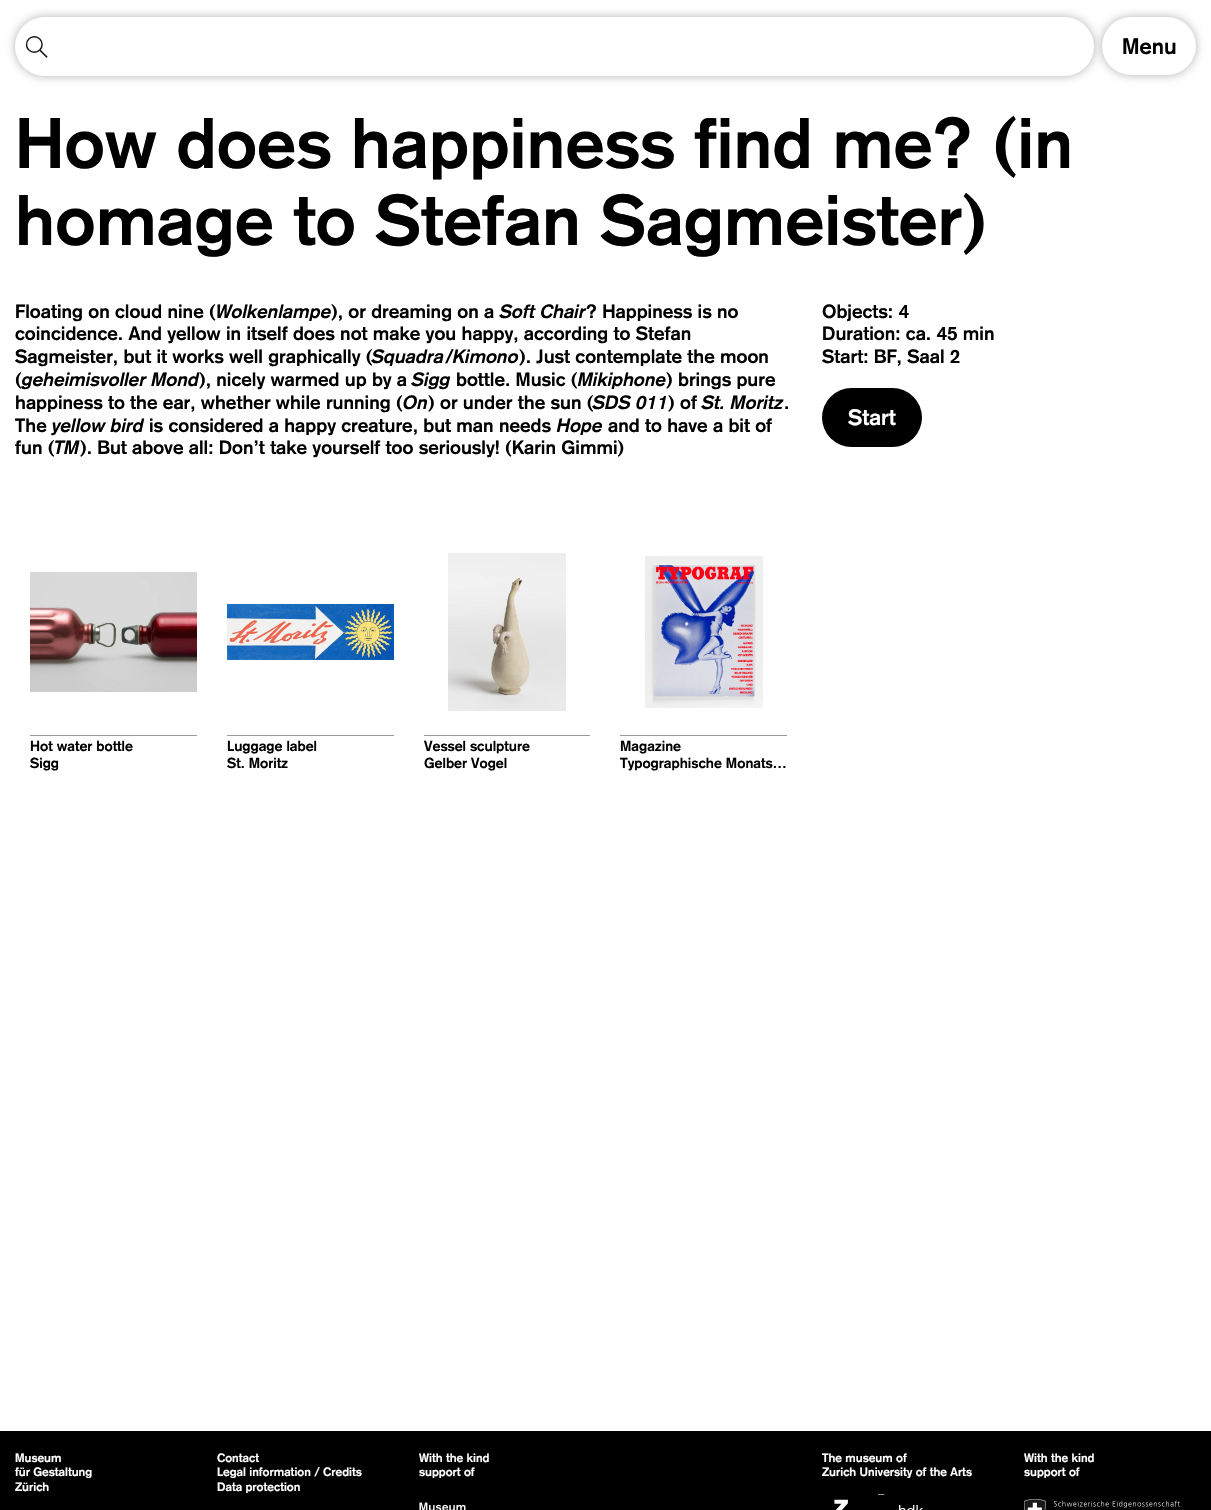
#include "include/core/SkBlurTypes.h"
#include "include/core/SkCanvas.h"
#include "include/core/SkData.h"
#include "include/core/SkFont.h"
#include "include/core/SkFontMgr.h"
#include "include/core/SkImage.h"
#include "include/core/SkMaskFilter.h"
#include "include/core/SkPaint.h"
#include "include/core/SkPathBuilder.h"
#include "include/core/SkTextBlob.h"
#include "include/effects/SkDashPathEffect.h"
#include "include/effects/SkGradientShader.h"
#include "include/utils/SkParsePath.h"

extern sk_sp<SkFontMgr> fontMgr;

void draw(SkCanvas* canvas) {
    SkPaint p;
    p.setAntiAlias(true);
    auto font = [&](const char* family, int weight, float size, bool italic = false) {
        SkFontStyle style(weight, SkFontStyle::kNormal_Width,
            italic ? SkFontStyle::kItalic_Slant : SkFontStyle::kUpright_Slant);
        SkFont result(fontMgr->matchFamilyStyle(family, style), size);
        result.setSubpixel(true);
        return result;
    };
    auto drawPhoto = [&](const char* path, float l, float t, float r, float b) {
        auto image = SkImages::DeferredFromEncodedData(SkData::MakeFromFileName(path));
        canvas->drawImageRect(image, SkRect::MakeLTRB(l, t, r, b), SkSamplingOptions());
    };
    canvas->clear(0xFFFFFFFF);
    p.setColor(0x4D000000);
    p.setMaskFilter(SkMaskFilter::MakeBlur(kNormal_SkBlurStyle, 5));
    canvas->drawRoundRect(SkRect::MakeLTRB(1102, 17, 1196, 75), 29, 29, p);
    p.setMaskFilter(nullptr);
    p.setColor(0xFFFFFFFF);
    canvas->drawRoundRect(SkRect::MakeLTRB(1102, 17, 1196, 75), 29, 29, p);
    p.setColor(0x4D000000);
    p.setMaskFilter(SkMaskFilter::MakeBlur(kNormal_SkBlurStyle, 5));
    canvas->drawRoundRect(SkRect::MakeLTRB(15, 17, 1094, 76), 29.5f, 29.5f, p);
    p.setMaskFilter(nullptr);
    p.setColor(0xFFFFFFFF);
    canvas->drawRoundRect(SkRect::MakeLTRB(15, 17, 1094, 76), 29.5f, 29.5f, p);
    drawPhoto("media/1.png", 25, 36, 48, 58);
    auto font1 = font("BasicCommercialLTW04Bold", 700, 22);
    p.setColor(0xFF000000);
    canvas->drawString("Menu", 1122, 54, font1, p);
    auto font2 = font("BasicCommercialLTW04Bold", 700, 70.25f);
    canvas->drawString("How does happiness find me? (in", 15, 168, font2, p);
    canvas->drawString("homage to Stefan Sagmeister)", 15, 245, font2, p);
    auto font3 = font("BasicCommercialLTW04Bold", 700, 19);
    canvas->drawString("Floating on cloud nine (", 15, 318, font3, p);
    auto font4 = font("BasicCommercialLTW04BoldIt", 700, 19, true);
    canvas->drawString("Wolkenlampe", 216, 318, font4, p);
    canvas->drawString("), or dreaming on a", 331, 318, font3, p);
    canvas->drawString("Soft Chair", 500, 318, font4, p);
    {
        const struct { const char* s; float x, y; } items[] = {
            {"? Happiness is no", 586, 318},
            {"coincidence. And yellow in itself does not make you happy, according to Stefan", 15, 340},
            {"Sagmeister, but it works well graphically (", 15, 363},
        };
        for (auto [s, x, y] : items) {
            canvas->drawString(s, x, y, font3, p);
        }
    }
    canvas->drawString("Squadra", 372, 363, font4, p);
    canvas->drawString("/", 445, 363, font3, p);
    canvas->drawString("Kimono", 453, 363, font4, p);
    canvas->drawString("). Just contemplate the moon", 519, 363, font3, p);
    canvas->drawString("(", 15, 386, font3, p);
    canvas->drawString("geheimisvoller Mond", 22, 386, font4, p);
    canvas->drawString("), nicely warmed up by a", 199, 386, font3, p);
    canvas->drawString("Sigg", 412, 386, font4, p);
    canvas->drawString("bottle. Music (", 456, 386, font3, p);
    canvas->drawString("Mikiphone", 578, 386, font4, p);
    canvas->drawString(") brings pure", 666, 386, font3, p);
    canvas->drawString("happiness to the ear, whether while running (", 15, 409, font3, p);
    canvas->drawString("On", 403, 409, font4, p);
    canvas->drawString(") or under the sun (", 428, 409, font3, p);
    canvas->drawString("SDS 011", 593, 409, font4, p);
    canvas->drawString(") of", 668, 409, font3, p);
    canvas->drawString("St. Moritz", 702, 409, font4, p);
    canvas->drawString(".", 784, 409, font3, p);
    canvas->drawString("The", 15, 432, font3, p);
    canvas->drawString("yellow bird", 52, 432, font4, p);
    canvas->drawString("is considered a happy creature, but man needs", 149, 432, font3, p);
    canvas->drawString("Hope", 557, 432, font4, p);
    canvas->drawString("and to have a bit of", 608, 432, font3, p);
    canvas->drawString("fun (", 15, 454, font3, p);
    canvas->drawString("TM", 54, 454, font4, p);
    {
        const struct { const char* s; float x, y; } items[] = {
            {"). But above all: Don’t take yourself too seriously! (Karin Gimmi)", 80, 454},
            {"Objects: 4", 822, 318},
            {"Duration: ca. 45 min", 822, 340},
            {"Start: BF, Saal 2", 822, 363},
        };
        for (auto [s, x, y] : items) {
            canvas->drawString(s, x, y, font3, p);
        }
    }
    canvas->drawRoundRect(SkRect::MakeLTRB(822, 388, 922, 447), 29.5f, 29.5f, p);
    p.setColor(0xFFFFFFFF);
    canvas->drawString("Start", 848, 425, font1, p);
    drawPhoto("media/2.png", 30, 572, 197, 692);
    p.setColor(0xFF999999);
    canvas->drawRect(SkRect::MakeLTRB(30, 735, 197, 736), p);
    auto font5 = font("BasicCommercialLTW04Bold", 700, 14.25f);
    p.setColor(0xFF000000);
    canvas->drawString("Hot water bottle", 30, 751, font5, p);
    canvas->drawString("Sigg", 30, 768, font5, p);
    drawPhoto("media/3.png", 227, 604, 394, 660);
    p.setColor(0xFF999999);
    canvas->drawRect(SkRect::MakeLTRB(227, 735, 394, 736), p);
    p.setColor(0xFF000000);
    canvas->drawString("Luggage label", 227, 751, font5, p);
    canvas->drawString("St. Moritz", 227, 768, font5, p);
    drawPhoto("media/4.png", 448, 553, 566, 711);
    p.setColor(0xFF999999);
    canvas->drawRect(SkRect::MakeLTRB(424, 735, 590, 736), p);
    p.setColor(0xFF000000);
    canvas->drawString("Vessel sculpture", 424, 751, font5, p);
    canvas->drawString("Gelber Vogel", 424, 768, font5, p);
    drawPhoto("media/5.png", 645, 556, 763, 708);
    p.setColor(0xFF999999);
    canvas->drawRect(SkRect::MakeLTRB(620, 735, 787, 736), p);
    p.setColor(0xFF000000);
    canvas->drawString("Magazine", 620, 751, font5, p);
    canvas->drawString("Typographische Monats…", 620, 768, font5, p);
    canvas->drawRect(SkRect::MakeLTRB(0, 1431, 1211, 1510), p);
    auto font6 = font("BasicCommercialLTW04Bold", 700, 12);
    p.setColor(0xFFFFFFFF);
    {
        const struct { const char* s; float x, y; } items[] = {
            {"Museum", 15, 1462},
            {"für Gestaltung", 15, 1476},
            {"Zürich", 15, 1491},
            {"Contact", 217, 1462},
            {"Legal information / Credits", 217, 1476},
            {"Data protection", 217, 1491},
            {"With the kind", 419, 1462},
            {"support of", 419, 1476},
        };
        for (auto [s, x, y] : items) {
            canvas->drawString(s, x, y, font6, p);
        }
    }
    drawPhoto("media/6.png", 419, 1502, 466, 1510);
    canvas->drawString("The museum of", 822, 1462, font6, p);
    canvas->drawString("Zurich University of the Arts", 822, 1476, font6, p);
    drawPhoto("media/7.png", 834, 1494, 923, 1510);
    canvas->drawString("With the kind", 1024, 1462, font6, p);
    canvas->drawString("support of", 1024, 1476, font6, p);
    drawPhoto("media/8.png", 1024, 1499, 1180, 1510);
}
